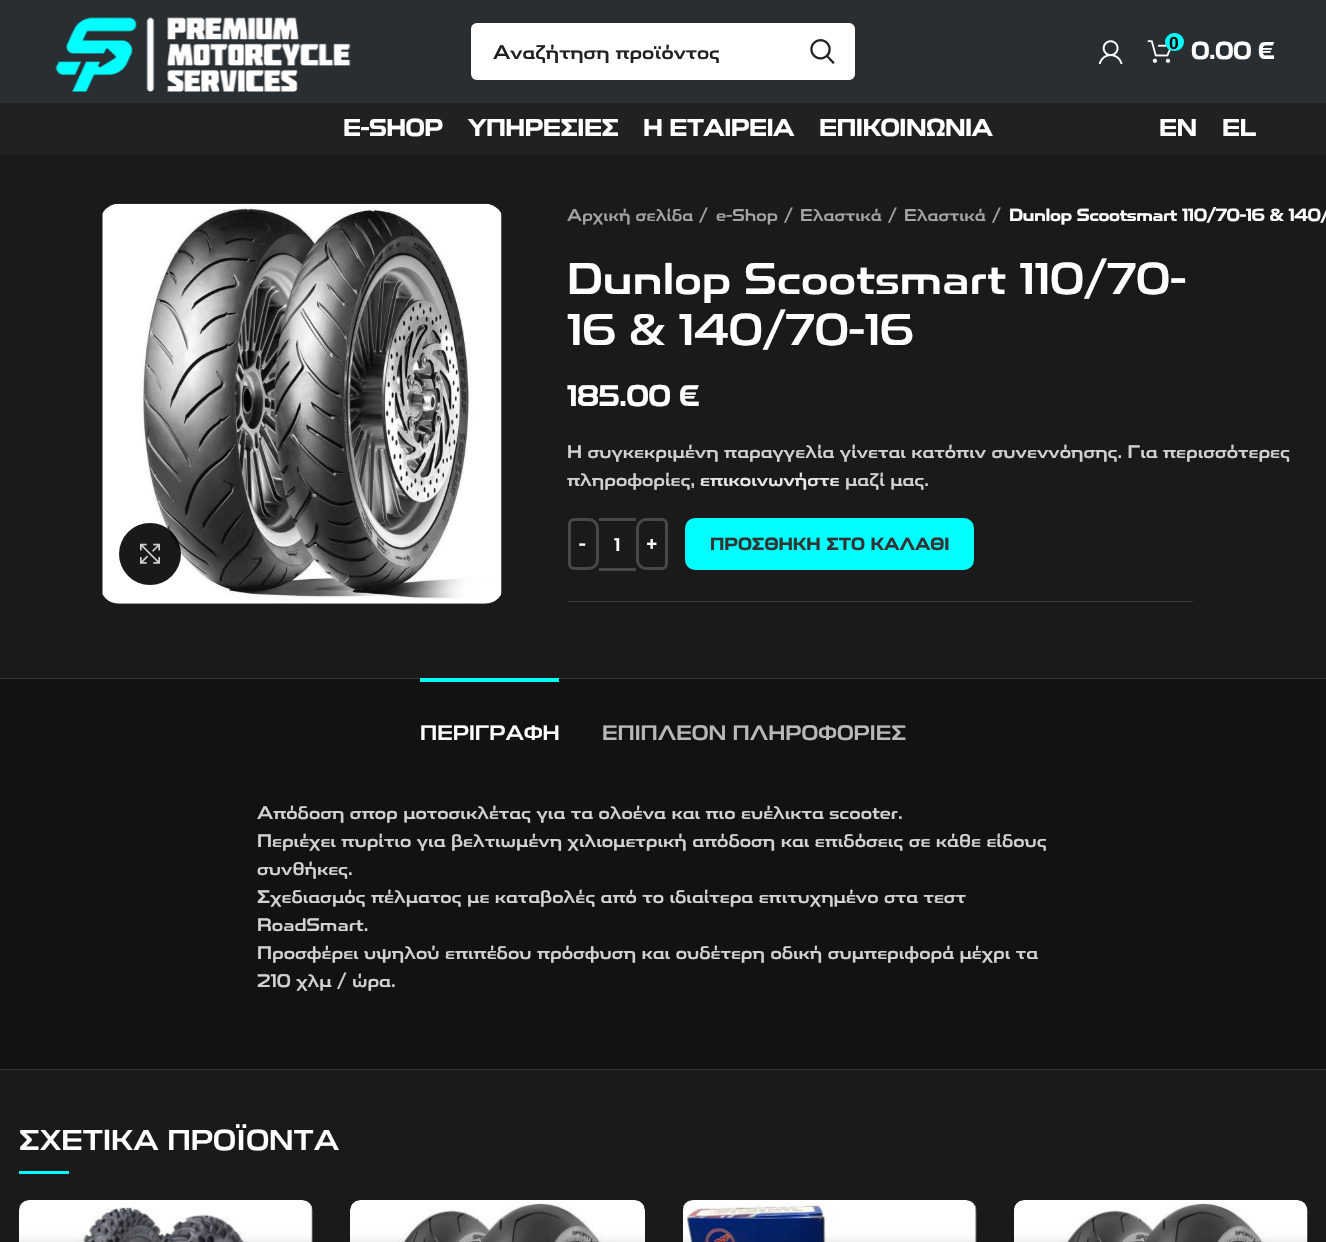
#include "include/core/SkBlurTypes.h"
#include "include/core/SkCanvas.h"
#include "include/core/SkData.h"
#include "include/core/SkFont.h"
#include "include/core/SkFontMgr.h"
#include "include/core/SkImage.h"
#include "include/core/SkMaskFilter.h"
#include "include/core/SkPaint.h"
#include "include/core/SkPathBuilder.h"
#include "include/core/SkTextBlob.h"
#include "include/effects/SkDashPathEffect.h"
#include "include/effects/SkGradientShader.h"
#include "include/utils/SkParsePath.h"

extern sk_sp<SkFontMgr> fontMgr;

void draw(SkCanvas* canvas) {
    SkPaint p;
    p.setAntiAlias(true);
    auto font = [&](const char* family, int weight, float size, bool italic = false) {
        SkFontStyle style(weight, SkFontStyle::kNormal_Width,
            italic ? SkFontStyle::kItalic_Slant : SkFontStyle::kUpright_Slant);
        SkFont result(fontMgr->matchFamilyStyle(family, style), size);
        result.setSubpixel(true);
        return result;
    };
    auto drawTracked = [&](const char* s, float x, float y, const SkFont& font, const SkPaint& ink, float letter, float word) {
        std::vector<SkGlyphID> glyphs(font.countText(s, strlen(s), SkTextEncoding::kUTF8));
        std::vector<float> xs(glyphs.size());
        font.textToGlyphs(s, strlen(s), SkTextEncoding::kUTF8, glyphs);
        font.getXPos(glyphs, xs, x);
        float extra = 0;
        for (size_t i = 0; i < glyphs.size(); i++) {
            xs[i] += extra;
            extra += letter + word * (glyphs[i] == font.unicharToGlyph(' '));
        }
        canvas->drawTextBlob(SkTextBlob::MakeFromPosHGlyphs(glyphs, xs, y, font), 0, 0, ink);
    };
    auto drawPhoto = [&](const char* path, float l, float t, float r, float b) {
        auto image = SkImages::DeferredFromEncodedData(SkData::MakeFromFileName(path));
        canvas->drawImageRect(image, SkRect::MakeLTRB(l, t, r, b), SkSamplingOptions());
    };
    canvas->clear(0xFF1A1A1A);
    p.setColor(0xFF292E32);
    canvas->drawRect(SkRect::MakeLTRB(0, 0, 1326, 103), p);
    drawPhoto("media/1.png", 55, 17, 351, 92);
    p.setColor(0xFFFFFFFF);
    canvas->drawRoundRect(SkRect::MakeLTRB(471, 23, 855, 80), 6, 6, p);
    p.setStyle(SkPaint::kStroke_Style);
    p.setStrokeWidth(3);
    p.setColor(0x33FFFFFF);
    canvas->drawRoundRect(SkRect::MakeLTRB(472.5f, 24.5f, 853.5f, 78.5f), 4.5f, 4.5f, p);
    auto font1 = font("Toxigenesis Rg", 400, 18.75f);
    p.setStyle(SkPaint::kFill_Style);
    p.setColor(0xFF212121);
    canvas->drawString("Αναζήτηση προϊόντος", 493, 59, font1, p);
    drawPhoto("media/2.png", 810, 39, 835, 64);
    drawPhoto("media/3.png", 1098, 40, 1123, 64);
    drawPhoto("media/4.png", 1147, 40, 1171, 63);
    p.setColor(0xFF00FFFF);
    canvas->drawRoundRect(SkRect::MakeLTRB(1165, 33, 1184, 51), 9, 9, p);
    auto font2 = font("Liberation Sans", 700, 17.5f);
    p.setColor(0xFF000000);
    canvas->drawString("0", 1169, 49, font2, p);
    auto font3 = font("Toxigenesis Rg", 700, 22.5f);
    p.setColor(0xFFFFFFFF);
    canvas->drawString("0.00 €", 1191, 59, font3, p);
    p.setColor(0xFF212121);
    canvas->drawRect(SkRect::MakeLTRB(0, 103, 1326, 154), p);
    p.setColor(0xFFFFFFFF);
    {
        const struct { const char* s; float x, y; } items[] = {
            {"E-SHOP", 343, 136},
            {"ΥΠΗΡΕΣΙΕΣ", 468, 136},
            {"Η ΕΤΑΙΡΕΙΑ", 643, 136},
            {"ΕΠΙΚΟΙΝΩΝΙΑ", 819, 136},
            {"EN", 1159, 136},
            {"EL", 1222, 136},
        };
        for (auto [s, x, y] : items) {
            canvas->drawString(s, x, y, font3, p);
        }
    }
    drawPhoto("media/5.png", 102, 203, 502, 604);
    p.setColor(0xE6000000);
    canvas->drawCircle(150, 554, 31, p);
    drawPhoto("media/6.png", 140, 543, 160, 564);
    auto font4 = font("Toxigenesis Rg", 400, 16.25f);
    p.setColor(0xFFA3A3A3);
    {
        const struct { const char* s; float x, y; } items[] = {
            {"Αρχική σελίδα", 567, 221},
            {"/", 699, 221},
            {"e-Shop", 716, 221},
            {"/", 784, 221},
            {"Ελαστικά", 800, 221},
            {"/", 888, 221},
            {"Ελαστικά", 904, 221},
            {"/", 992, 221},
        };
        for (auto [s, x, y] : items) {
            canvas->drawString(s, x, y, font4, p);
        }
    }
    auto font5 = font("Toxigenesis Rg", 700, 16.25f);
    p.setColor(0xFFFFFFFF);
    canvas->drawString("Dunlop Scootsmart 110/70-16 & 140/", 1009, 221, font5, p);
    auto font6 = font("Toxigenesis Rg", 400, 42.5f);
    canvas->drawString("Dunlop Scootsmart 110/70-", 567, 294, font6, p);
    canvas->drawString("16 & 140/70-16", 567, 345, font6, p);
    auto font7 = font("Toxigenesis Rg", 700, 27.5f);
    canvas->drawString("185.00 €", 567, 406, font7, p);
    auto font8 = font("Toxigenesis Rg", 400, 17.5f);
    p.setColor(0xFFD1D1D1);
    canvas->drawString("Η συγκεκριμένη παραγγελία γίνεται κατόπιν συνεννόησης. Για περισσότερες", 567, 458, font8, p);
    canvas->drawString("πληροφορίες,", 567, 486, font8, p);
    p.setColor(0xFFE8E8E8);
    canvas->drawString("επικοινωνήστε", 700, 486, font8, p);
    p.setColor(0xFFD1D1D1);
    canvas->drawString("μαζί μας.", 845, 486, font8, p);
    p.setStyle(SkPaint::kStroke_Style);
    p.setColor(0xFF484848);
    canvas->drawPath(SkPathBuilder().moveTo(574, 519.5f).lineTo(589, 519.5f).cubicTo(593.5f, 519.5f, 597.5f, 523.5f, 597.5f, 528).lineTo(597.5f, 560).cubicTo(597.5f, 564.5f, 593.5f, 568.5f, 589, 568.5f).lineTo(574, 568.5f).cubicTo(571.5f, 568.5f, 569.5f, 566.5f, 569.5f, 564).lineTo(569.5f, 524).cubicTo(569.5f, 521.5f, 571.5f, 519.5f, 574, 519.5f).close().detach(), p);
    p.setStyle(SkPaint::kFill_Style);
    p.setColor(0xFFFFFFFF);
    drawTracked("-", 579, 550, font5, p, 0.4f, 0);
    p.setColor(0xFF484848);
    canvas->drawRect(SkRect::MakeLTRB(599, 518, 636, 521), p);
    canvas->drawRect(SkRect::MakeLTRB(599, 568, 636, 571), p);
    p.setColor(0xFFFFFFFF);
    canvas->drawString("1", 614, 551, font8, p);
    p.setStyle(SkPaint::kStroke_Style);
    p.setColor(0xFF484848);
    canvas->drawPath(SkPathBuilder().moveTo(646, 519.5f).lineTo(662, 519.5f).cubicTo(664.5f, 519.5f, 666.5f, 521.5f, 666.5f, 524).lineTo(666.5f, 564).cubicTo(666.5f, 566.5f, 664.5f, 568.5f, 662, 568.5f).lineTo(646, 568.5f).cubicTo(641.5f, 568.5f, 637.5f, 564.5f, 637.5f, 560).lineTo(637.5f, 528).cubicTo(637.5f, 523.5f, 641.5f, 519.5f, 646, 519.5f).close().detach(), p);
    p.setStyle(SkPaint::kFill_Style);
    p.setColor(0xFFFFFFFF);
    drawTracked("+", 646, 550, font5, p, 0.4f, 0);
    p.setColor(0xFF00FFFF);
    canvas->drawRoundRect(SkRect::MakeLTRB(685, 518, 974, 570), 10, 10, p);
    p.setColor(0xFF333333);
    drawTracked("ΠΡΟΣΘΗΚΗ ΣΤΟ ΚΑΛΑΘΙ", 710, 550, font5, p, 0.4f, 0);
    {
        const struct { float l, t, r, b; SkColor color; } items[] = {
            {568, 601, 1193, 602, 0xFF3C3C3C},
            {0, 679, 1326, 1069, 0xFF121212},
            {0, 678, 1326, 679, 0xFF363636},
            {0, 1069, 1326, 1070, 0xFF363636},
            {420, 678, 559, 682, 0xFF00FFFF},
        };
        for (auto [l, t, r, b, color] : items) {
            p.setColor(color);
            canvas->drawRect(SkRect::MakeLTRB(l, t, r, b), p);
        }
    }
    auto font9 = font("Toxigenesis Rg", 400, 20);
    p.setColor(0xFFFFFFFF);
    canvas->drawString("ΠΕΡΙΓΡΑΦΗ", 420, 740, font9, p);
    p.setColor(0xFFB8B8B8);
    canvas->drawString("ΕΠΙΠΛΕΟΝ ΠΛΗΡΟΦΟΡΙΕΣ", 602, 740, font9, p);
    p.setColor(0xFFD1D1D1);
    {
        const struct { const char* s; float x, y; } items[] = {
            {"Aπόδοση σπορ μοτοσικλέτας για τα ολοένα και πιο ευέλικτα scooter.", 257, 819},
            {"Περιέχει πυρίτιο για βελτιωμένη χιλιομετρική απόδοση και επιδόσεις σε κάθε είδους", 257, 847},
            {"συνθήκες.", 257, 875},
            {"Σχεδιασμός πέλματος με καταβολές από το ιδιαίτερα επιτυχημένο στα τεστ", 257, 903},
            {"RoadSmart.", 257, 931},
            {"Προσφέρει υψηλού επιπέδου πρόσφυση και ουδέτερη οδική συμπεριφορά μέχρι τα", 257, 959},
            {"210 χλμ / ώρα.", 257, 987},
        };
        for (auto [s, x, y] : items) {
            canvas->drawString(s, x, y, font8, p);
        }
    }
    auto font10 = font("Toxigenesis Rg", 400, 27.5f);
    p.setColor(0xFFFFFFFF);
    canvas->drawString("ΣΧΕΤΙΚΑ ΠΡΟΪΟΝΤΑ", 19, 1150, font10, p);
    p.setColor(0xFF00FFFF);
    canvas->drawRect(SkRect::MakeLTRB(19, 1171, 69, 1174), p);
    drawPhoto("media/7.png", 19, 1200, 313, 1242);
    drawPhoto("media/8.png", 350, 1200, 645, 1242);
    drawPhoto("media/9.png", 683, 1200, 977, 1242);
    drawPhoto("media/10.png", 1014, 1200, 1308, 1242);
    p.setColor(0x24000000);
    p.setMaskFilter(SkMaskFilter::MakeBlur(kNormal_SkBlurStyle, 5.5f));
    canvas->drawRect(SkRect::MakeLTRB(0, 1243, 1326, 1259), p);
    p.setMaskFilter(nullptr);
}
